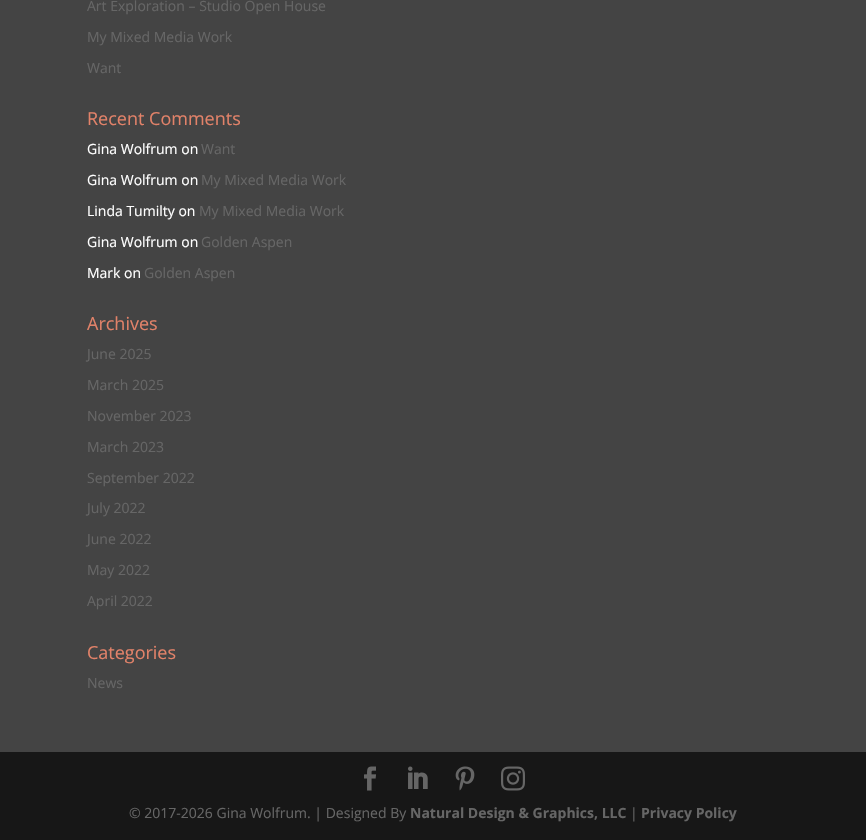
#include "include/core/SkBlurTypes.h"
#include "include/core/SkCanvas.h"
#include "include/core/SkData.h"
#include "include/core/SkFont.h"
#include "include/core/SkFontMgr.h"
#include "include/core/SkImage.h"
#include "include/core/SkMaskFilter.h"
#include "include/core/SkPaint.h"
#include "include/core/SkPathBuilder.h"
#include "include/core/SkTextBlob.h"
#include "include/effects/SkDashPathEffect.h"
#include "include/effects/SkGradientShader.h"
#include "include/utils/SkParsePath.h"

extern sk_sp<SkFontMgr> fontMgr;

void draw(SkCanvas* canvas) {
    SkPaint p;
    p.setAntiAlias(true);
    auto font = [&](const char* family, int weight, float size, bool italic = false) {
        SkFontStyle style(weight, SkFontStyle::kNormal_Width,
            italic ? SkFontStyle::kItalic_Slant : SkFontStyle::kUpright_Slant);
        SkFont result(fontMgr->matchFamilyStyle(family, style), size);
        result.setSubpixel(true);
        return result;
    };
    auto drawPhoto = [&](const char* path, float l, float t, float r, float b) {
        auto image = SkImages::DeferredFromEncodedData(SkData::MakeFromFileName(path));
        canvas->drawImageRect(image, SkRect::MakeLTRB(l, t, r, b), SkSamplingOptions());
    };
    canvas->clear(0xFF444444);
    auto font1 = font("Open Sans", 400, 14);
    p.setColor(0xFF666666);
    {
        const struct { const char* s; float x, y; } items[] = {
            {"Art Exploration – Studio Open House", 87, 11},
            {"My Mixed Media Work", 87, 42},
            {"Want", 87, 73},
        };
        for (auto [s, x, y] : items) {
            canvas->drawString(s, x, y, font1, p);
        }
    }
    auto font2 = font("Open Sans", 400, 18);
    p.setColor(0xFFE28269);
    canvas->drawString("Recent Comments", 87, 125, font2, p);
    p.setColor(0xFFFFFFFF);
    canvas->drawString("Gina Wolfrum on", 87, 154, font1, p);
    p.setColor(0xFF666666);
    canvas->drawString("Want", 201, 154, font1, p);
    p.setColor(0xFFFFFFFF);
    canvas->drawString("Gina Wolfrum on", 87, 185, font1, p);
    p.setColor(0xFF666666);
    canvas->drawString("My Mixed Media Work", 201, 185, font1, p);
    p.setColor(0xFFFFFFFF);
    canvas->drawString("Linda Tumilty on", 87, 216, font1, p);
    p.setColor(0xFF666666);
    canvas->drawString("My Mixed Media Work", 199, 216, font1, p);
    p.setColor(0xFFFFFFFF);
    canvas->drawString("Gina Wolfrum on", 87, 247, font1, p);
    p.setColor(0xFF666666);
    canvas->drawString("Golden Aspen", 201, 247, font1, p);
    p.setColor(0xFFFFFFFF);
    canvas->drawString("Mark on", 87, 278, font1, p);
    p.setColor(0xFF666666);
    canvas->drawString("Golden Aspen", 144, 278, font1, p);
    p.setColor(0xFFE28269);
    canvas->drawString("Archives", 87, 330, font2, p);
    p.setColor(0xFF666666);
    {
        const struct { const char* s; float x, y; } items[] = {
            {"June 2025", 87, 359},
            {"March 2025", 87, 390},
            {"November 2023", 87, 421},
            {"March 2023", 87, 452},
            {"September 2022", 87, 483},
            {"July 2022", 87, 513},
            {"June 2022", 87, 544},
            {"May 2022", 87, 575},
            {"April 2022", 87, 606},
        };
        for (auto [s, x, y] : items) {
            canvas->drawString(s, x, y, font1, p);
        }
    }
    p.setColor(0xFFE28269);
    canvas->drawString("Categories", 87, 659, font2, p);
    p.setColor(0xFF666666);
    canvas->drawString("News", 87, 688, font1, p);
    p.setColor(0xFF171717);
    canvas->drawRect(SkRect::MakeLTRB(0, 752, 866, 840), p);
    drawPhoto("media/1.png", 364, 766, 376, 791);
    drawPhoto("media/2.png", 408, 766, 428, 789);
    drawPhoto("media/3.png", 455, 766, 475, 791);
    drawPhoto("media/4.png", 501, 766, 525, 791);
    p.setColor(0xFF666666);
    canvas->drawString("© 2017-2026 Gina Wolfrum. | Designed By", 129, 818, font1, p);
    auto font3 = font("Open Sans", 700, 14);
    canvas->drawString("Natural Design & Graphics, LLC", 410, 818, font3, p);
    canvas->drawString("|", 630, 818, font1, p);
    canvas->drawString("Privacy Policy", 641, 818, font3, p);
}
